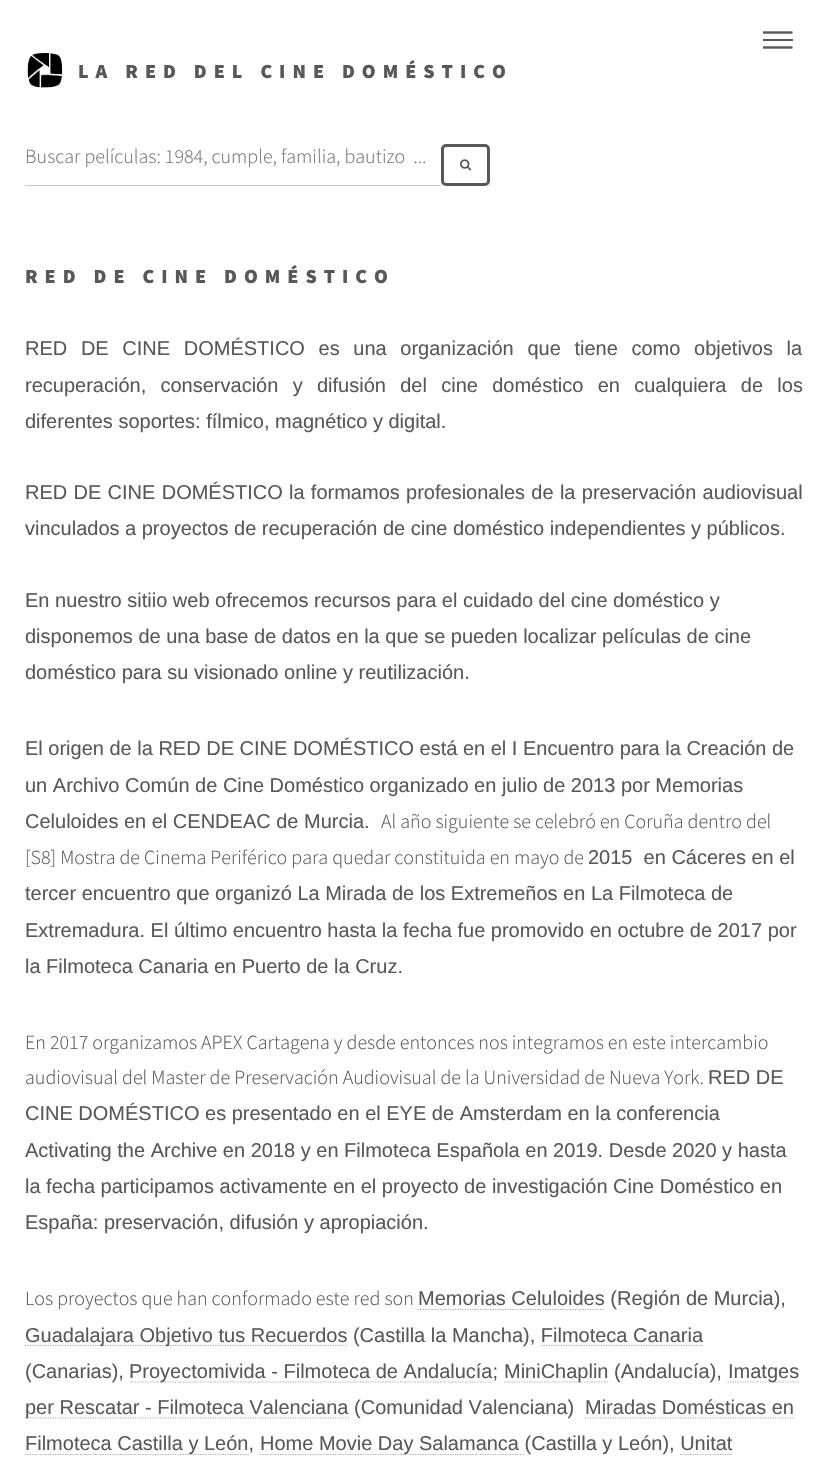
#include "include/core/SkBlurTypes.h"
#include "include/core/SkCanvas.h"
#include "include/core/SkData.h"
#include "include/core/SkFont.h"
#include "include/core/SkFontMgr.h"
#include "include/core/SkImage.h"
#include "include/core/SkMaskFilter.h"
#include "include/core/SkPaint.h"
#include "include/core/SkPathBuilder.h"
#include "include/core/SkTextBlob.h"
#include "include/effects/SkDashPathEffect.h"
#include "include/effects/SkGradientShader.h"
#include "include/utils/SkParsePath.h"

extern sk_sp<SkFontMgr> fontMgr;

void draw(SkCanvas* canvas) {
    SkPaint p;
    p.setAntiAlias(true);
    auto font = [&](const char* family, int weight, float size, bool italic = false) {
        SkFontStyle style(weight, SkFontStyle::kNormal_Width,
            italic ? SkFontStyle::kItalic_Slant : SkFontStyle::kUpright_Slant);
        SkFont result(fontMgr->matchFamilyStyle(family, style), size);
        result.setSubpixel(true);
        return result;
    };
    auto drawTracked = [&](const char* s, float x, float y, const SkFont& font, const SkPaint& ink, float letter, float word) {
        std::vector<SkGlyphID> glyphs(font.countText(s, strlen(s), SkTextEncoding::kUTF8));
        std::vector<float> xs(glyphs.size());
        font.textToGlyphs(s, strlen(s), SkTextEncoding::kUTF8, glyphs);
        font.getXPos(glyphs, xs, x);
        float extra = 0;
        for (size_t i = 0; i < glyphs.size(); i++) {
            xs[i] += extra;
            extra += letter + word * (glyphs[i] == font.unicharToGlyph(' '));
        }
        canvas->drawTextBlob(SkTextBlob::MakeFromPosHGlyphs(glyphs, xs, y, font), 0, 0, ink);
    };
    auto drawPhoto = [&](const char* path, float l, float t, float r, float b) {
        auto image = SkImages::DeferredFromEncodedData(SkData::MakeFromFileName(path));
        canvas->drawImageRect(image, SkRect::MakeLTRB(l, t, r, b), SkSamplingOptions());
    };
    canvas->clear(0xFFFFFFFF);
    canvas->save();
    canvas->clipRect(SkRect::MakeLTRB(763, 25, 793, 55));
    p.setStyle(SkPaint::kStroke_Style);
    p.setStrokeWidth(2.4f);
    p.setColor(0xFF585858);
    canvas->drawPath(SkPathBuilder().moveTo(762.5f, 32.5f).lineTo(792.5f, 32.5f).detach(), p);
    canvas->restore();
    p.setStyle(SkPaint::kFill_Style);
    canvas->drawRect(SkRect::MakeLTRB(763, 39, 793, 41), p);
    canvas->save();
    canvas->clipRect(SkRect::MakeLTRB(763, 25, 793, 55));
    p.setStyle(SkPaint::kStroke_Style);
    canvas->drawPath(SkPathBuilder().moveTo(762.5f, 47.5f).lineTo(792.5f, 47.5f).detach(), p);
    canvas->restore();
    drawPhoto("media/1.png", 27, 52, 63, 88);
    auto font1 = font("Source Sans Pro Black", 900, 20);
    p.setStyle(SkPaint::kFill_Style);
    drawTracked("LA RED DEL CINE DOMÉSTICO", 78, 78, font1, p, 7, 0);
    p.setColor(0xFFC9C9C9);
    canvas->drawRect(SkRect::MakeLTRB(25, 185, 441, 186), p);
    auto font2 = font("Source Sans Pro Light", 300, 20);
    p.setColor(0xFF757575);
    canvas->drawString("Buscar películas: 1984, cumple, familia, bautizo  ...", 25, 163, font2, p);
    p.setStyle(SkPaint::kStroke_Style);
    p.setStrokeWidth(3);
    p.setColor(0xFF585858);
    canvas->drawRoundRect(SkRect::MakeLTRB(442.5f, 145.5f, 488.5f, 184.5f), 3.5f, 3.5f, p);
    drawPhoto("media/2.png", 460, 159, 472, 171);
    p.setStyle(SkPaint::kFill_Style);
    drawTracked("RED DE CINE DOMÉSTICO", 25, 283, font1, p, 7, 0);
    auto font3 = font("Liberation Sans", 400, 20);
    drawTracked("RED DE CINE DOMÉSTICO es una organización que tiene como objetivos la", 25, 355, font3, p, 0, 8.1f);
    drawTracked("recuperación, conservación y difusión del cine doméstico en cualquiera de los", 25, 392, font3, p, 0, 8.75f);
    canvas->drawString("diferentes soportes: fílmico, magnético y digital.", 25, 428, font3, p);
    drawTracked("RED DE CINE DOMÉSTICO", 25, 499, font3, p, 0, 0.75f);
    drawTracked("la formamos profesionales de la preservación audiovisual", 289, 499, font3, p, 0, 0.75f);
    {
        const struct { const char* s; float x, y; } items[] = {
            {"vinculados a proyectos de recuperación de cine doméstico independientes y públicos.", 25, 535},
            {"En nuestro sitiio web ofrecemos recursos para el cuidado del cine doméstico y", 25, 607},
            {"disponemos de una base de datos en la que se pueden localizar películas de cine", 25, 643},
            {"doméstico para su visionado online y reutilización.", 25, 679},
            {"El origen de la RED DE CINE DOMÉSTICO está en el I Encuentro para la Creación de", 25, 755},
            {"un Archivo Común de Cine Doméstico organizado en julio de 2013 por Memorias", 25, 792},
            {"Celuloides en el CENDEAC de Murcia.", 25, 828},
        };
        for (auto [s, x, y] : items) {
            canvas->drawString(s, x, y, font3, p);
        }
    }
    canvas->drawString("Al año siguiente se celebró en Coruña dentro del", 381, 828, font2, p);
    canvas->drawString("[S8] Mostra de Cinema Periférico para quedar constituida en mayo de", 25, 864, font2, p);
    {
        const struct { const char* s; float x, y; } items[] = {
            {"2015  en Cáceres en el", 588, 864},
            {"tercer encuentro que organizó La Mirada de los Extremeños en La Filmoteca de", 25, 900},
            {"Extremadura. El último encuentro hasta la fecha fue promovido en octubre de 2017 por", 25, 937},
            {"la Filmoteca Canaria en Puerto de la Cruz.", 25, 973},
        };
        for (auto [s, x, y] : items) {
            canvas->drawString(s, x, y, font3, p);
        }
    }
    canvas->drawString("En 2017 organizamos APEX Cartagena y desde entonces nos integramos en este intercambio", 25, 1049, font2, p);
    canvas->drawString("audiovisual del Master de Preservación Audiovisual de la Universidad de Nueva York.", 25, 1084, font2, p);
    {
        const struct { const char* s; float x, y; } items[] = {
            {"RED DE", 708, 1084},
            {"CINE DOMÉSTICO es presentado en el EYE de Amsterdam en la conferencia", 25, 1120},
            {"Activating the Archive en 2018 y en Filmoteca Española en 2019. Desde 2020 y hasta", 25, 1157},
            {"la fecha participamos activamente en el proyecto de investigación Cine Doméstico en", 25, 1193},
            {"España: preservación, difusión y apropiación.", 25, 1229},
        };
        for (auto [s, x, y] : items) {
            canvas->drawString(s, x, y, font3, p);
        }
    }
    canvas->drawString("Los proyectos que han conformado este red son", 25, 1305, font2, p);
    p.setStyle(SkPaint::kStroke_Style);
    p.setStrokeWidth(1.2f);
    p.setColor(0xFFACACAC);
    p.setPathEffect(SkDashPathEffect::Make({{1.25f, 1.25f}}, 0));
    canvas->drawPath(SkPathBuilder().moveTo(417.5f, 1309.5f).lineTo(605, 1309.5f).detach(), p);
    p.setPathEffect(nullptr);
    p.setStyle(SkPaint::kFill_Style);
    p.setColor(0xFF585858);
    canvas->drawString("Memorias Celuloides (Región de Murcia),", 418, 1305, font3, p);
    p.setStyle(SkPaint::kStroke_Style);
    p.setColor(0xFFACACAC);
    p.setPathEffect(SkDashPathEffect::Make({{1.25f, 1.25f}}, 0));
    canvas->drawPath(SkPathBuilder().moveTo(25, 1345.5f).lineTo(347.5f, 1345.5f).detach(), p);
    p.setPathEffect(nullptr);
    p.setStyle(SkPaint::kFill_Style);
    p.setColor(0xFF585858);
    canvas->drawString("Guadalajara Objetivo tus Recuerdos (Castilla la Mancha), Filmoteca Canaria", 25, 1342, font3, p);
    p.setStyle(SkPaint::kStroke_Style);
    p.setColor(0xFFACACAC);
    p.setPathEffect(SkDashPathEffect::Make({{1.25f, 1.25f}}, 0));
    canvas->drawPath(SkPathBuilder().moveTo(541, 1345.5f).lineTo(702.5f, 1345.5f).detach(), p);
    p.setPathEffect(nullptr);
    p.setStyle(SkPaint::kFill_Style);
    p.setColor(0xFF585858);
    canvas->drawString("(Canarias),", 25, 1378, font3, p);
    p.setStyle(SkPaint::kStroke_Style);
    p.setColor(0xFFACACAC);
    p.setPathEffect(SkDashPathEffect::Make({{1.25f, 1.25f}}, 0));
    canvas->drawPath(SkPathBuilder().moveTo(130, 1382).lineTo(492.5f, 1382).detach(), p);
    p.setPathEffect(nullptr);
    p.setStyle(SkPaint::kFill_Style);
    p.setColor(0xFF585858);
    canvas->drawString("Proyectomivida - Filmoteca de Andalucía;", 129, 1378, font3, p);
    p.setStyle(SkPaint::kStroke_Style);
    p.setColor(0xFFACACAC);
    p.setPathEffect(SkDashPathEffect::Make({{1.25f, 1.25f}}, 0));
    canvas->drawPath(SkPathBuilder().moveTo(504, 1382).lineTo(609, 1382).detach(), p);
    p.setPathEffect(nullptr);
    p.setStyle(SkPaint::kFill_Style);
    p.setColor(0xFF585858);
    canvas->drawString("MiniChaplin (Andalucía),", 504, 1378, font3, p);
    p.setStyle(SkPaint::kStroke_Style);
    p.setColor(0xFFACACAC);
    p.setPathEffect(SkDashPathEffect::Make({{1.25f, 1.25f}}, 0));
    canvas->drawPath(SkPathBuilder().moveTo(727.5f, 1382).lineTo(799, 1382).detach(), p);
    p.setPathEffect(nullptr);
    p.setStyle(SkPaint::kFill_Style);
    p.setColor(0xFF585858);
    canvas->drawString("Imatges", 728, 1378, font3, p);
    p.setStyle(SkPaint::kStroke_Style);
    p.setColor(0xFFACACAC);
    p.setPathEffect(SkDashPathEffect::Make({{1.25f, 1.25f}}, 0));
    canvas->drawPath(SkPathBuilder().moveTo(25, 1418).lineTo(349, 1418).detach(), p);
    p.setPathEffect(nullptr);
    p.setStyle(SkPaint::kFill_Style);
    p.setColor(0xFF585858);
    canvas->drawString("per Rescatar - Filmoteca Valenciana (Comunidad Valenciana)", 25, 1414, font3, p);
    canvas->drawString("Miradas Domésticas en", 585, 1414, font3, p);
    p.setStyle(SkPaint::kStroke_Style);
    p.setColor(0xFFACACAC);
    p.setPathEffect(SkDashPathEffect::Make({{1.25f, 1.25f}}, 0));
    canvas->drawPath(SkPathBuilder().moveTo(585, 1418).lineTo(794, 1418).detach(), p);
    p.setPathEffect(nullptr);
    p.setPathEffect(SkDashPathEffect::Make({{1.25f, 1.25f}}, 0));
    canvas->drawPath(SkPathBuilder().moveTo(25, 1454.5f).lineTo(249, 1454.5f).detach(), p);
    p.setPathEffect(nullptr);
    p.setStyle(SkPaint::kFill_Style);
    p.setColor(0xFF585858);
    canvas->drawString("Filmoteca Castilla y León,", 25, 1450, font3, p);
    p.setStyle(SkPaint::kStroke_Style);
    p.setColor(0xFFACACAC);
    p.setPathEffect(SkDashPathEffect::Make({{1.25f, 1.25f}}, 0));
    canvas->drawPath(SkPathBuilder().moveTo(260, 1454.5f).lineTo(524, 1454.5f).detach(), p);
    p.setPathEffect(nullptr);
    p.setStyle(SkPaint::kFill_Style);
    p.setColor(0xFF585858);
    canvas->drawString("Home Movie Day Salamanca (Castilla y León), Unitat", 260, 1450, font3, p);
    p.setStyle(SkPaint::kStroke_Style);
    p.setColor(0xFFACACAC);
    p.setPathEffect(SkDashPathEffect::Make({{1.25f, 1.25f}}, 0));
    canvas->drawPath(SkPathBuilder().moveTo(680, 1454.5f).lineTo(732.5f, 1454.5f).detach(), p);
    p.setPathEffect(nullptr);
}
